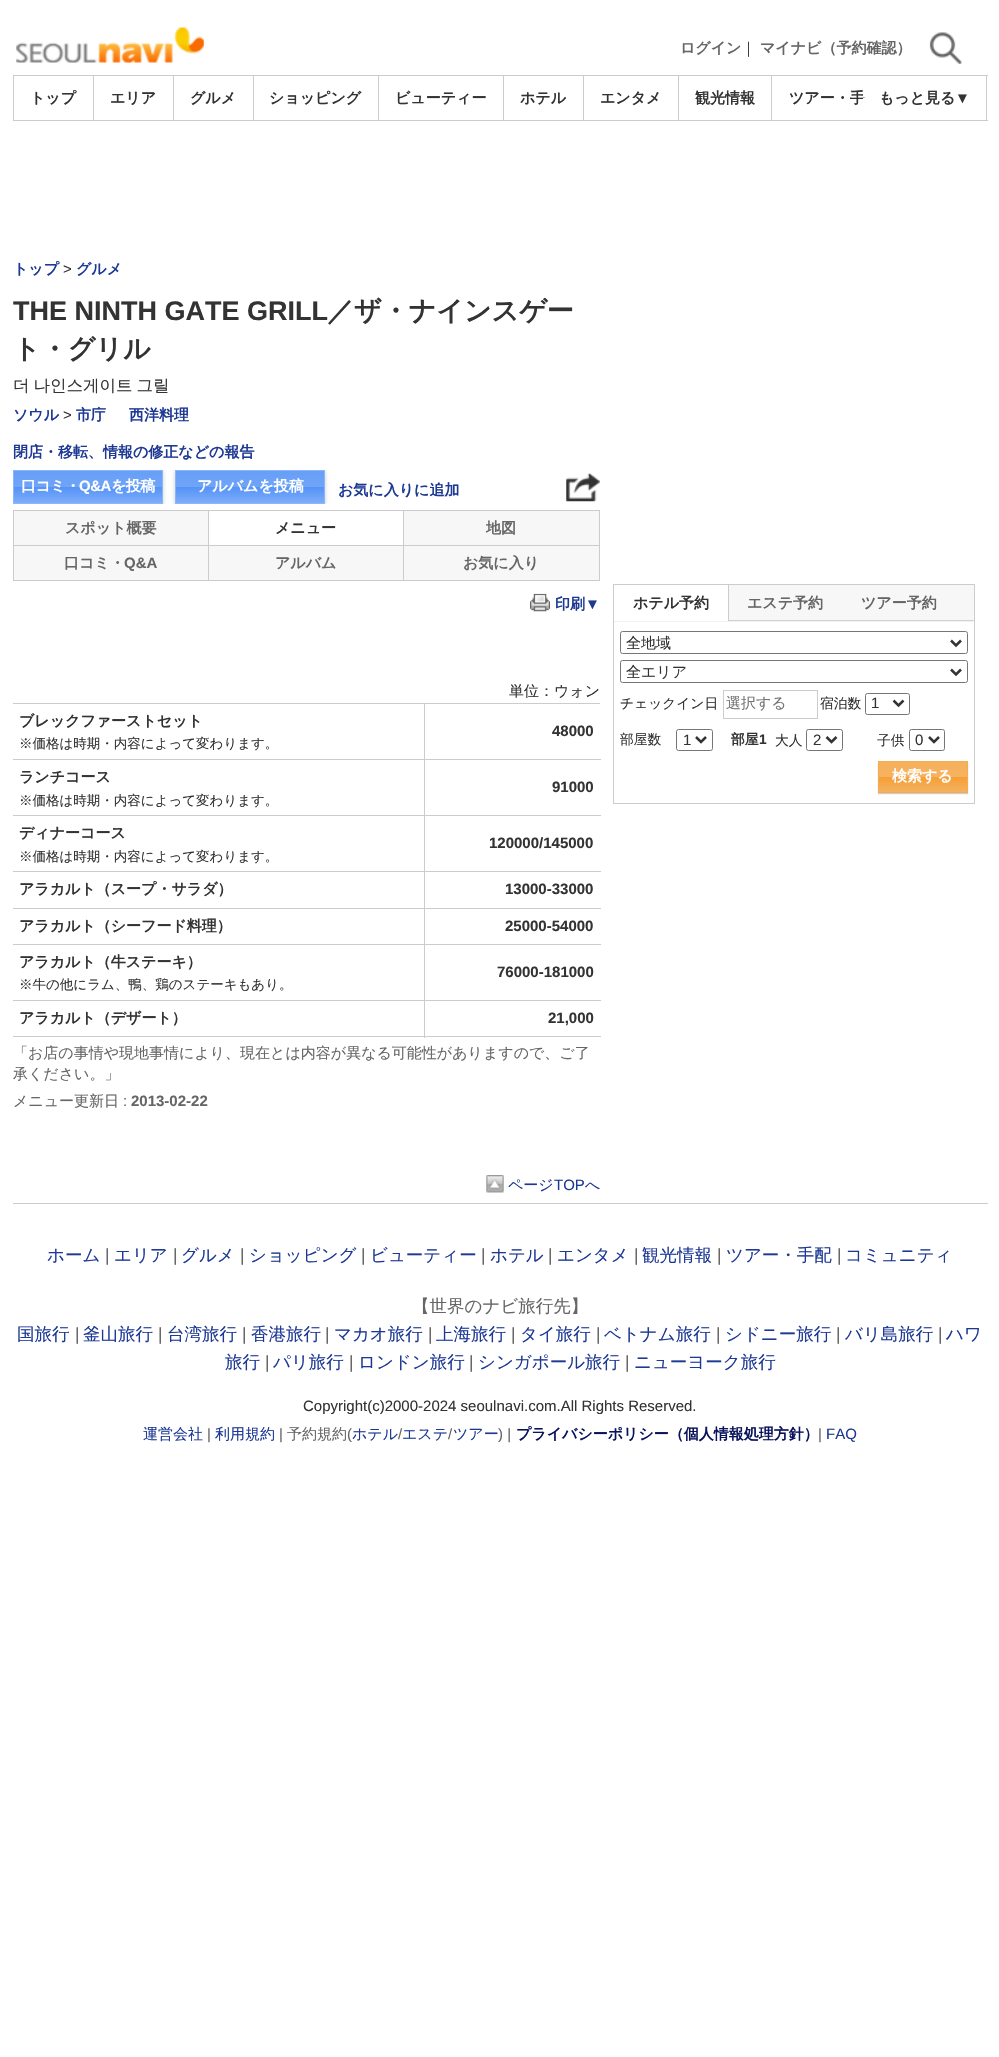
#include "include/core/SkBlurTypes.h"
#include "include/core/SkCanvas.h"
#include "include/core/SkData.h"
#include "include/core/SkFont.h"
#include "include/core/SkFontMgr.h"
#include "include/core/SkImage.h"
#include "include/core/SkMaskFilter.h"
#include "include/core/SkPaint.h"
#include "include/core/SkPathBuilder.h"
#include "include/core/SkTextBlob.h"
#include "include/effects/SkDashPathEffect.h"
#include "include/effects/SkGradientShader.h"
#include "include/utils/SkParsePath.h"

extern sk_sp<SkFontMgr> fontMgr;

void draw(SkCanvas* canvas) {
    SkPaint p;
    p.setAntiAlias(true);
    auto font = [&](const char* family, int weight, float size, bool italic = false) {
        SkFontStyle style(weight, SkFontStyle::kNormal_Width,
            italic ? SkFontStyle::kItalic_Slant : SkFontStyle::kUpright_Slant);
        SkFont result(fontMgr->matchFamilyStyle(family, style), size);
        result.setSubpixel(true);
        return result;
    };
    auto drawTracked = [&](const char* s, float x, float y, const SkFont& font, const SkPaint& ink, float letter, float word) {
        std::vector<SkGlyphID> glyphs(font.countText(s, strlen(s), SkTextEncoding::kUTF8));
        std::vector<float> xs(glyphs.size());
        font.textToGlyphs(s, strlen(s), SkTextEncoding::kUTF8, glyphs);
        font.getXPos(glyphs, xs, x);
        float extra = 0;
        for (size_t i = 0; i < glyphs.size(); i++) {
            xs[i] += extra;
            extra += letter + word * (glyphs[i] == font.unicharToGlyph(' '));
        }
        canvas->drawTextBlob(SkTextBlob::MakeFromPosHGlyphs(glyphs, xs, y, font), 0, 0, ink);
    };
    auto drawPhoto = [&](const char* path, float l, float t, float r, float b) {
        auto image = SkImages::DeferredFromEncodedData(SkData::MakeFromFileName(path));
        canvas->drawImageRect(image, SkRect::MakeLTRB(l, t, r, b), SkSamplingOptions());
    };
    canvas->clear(0xFFFFFFFF);
    drawPhoto("media/1.png", 16, 27, 204, 63);
    auto font1 = font("WenQuanYi Zen Hei", 700, 15);
    p.setColor(0xFF666666);
    canvas->drawString("ログイン", 680, 53, font1, p);
    auto font2 = font("WenQuanYi Zen Hei", 500, 15);
    p.setColor(0xFF333333);
    canvas->drawString("｜", 741, 53, font2, p);
    p.setColor(0xFF666666);
    canvas->drawString("マイナビ（予約確認）", 760, 53, font1, p);
    drawPhoto("media/2.png", 929, 32, 962, 64);
    {
        const struct { float l, t, r, b; SkColor color; } items[] = {
            {13, 75, 988, 76, 0xFFCCCCCC},
            {13, 120, 988, 121, 0xFFCCCCCC},
            {986, 76, 987, 120, 0xFFCCCCCC},
            {93, 76, 94, 120, 0xFFCCCCCC},
            {13, 76, 14, 120, 0xFFCCCCCC},
        };
        for (auto [l, t, r, b, color] : items) {
            p.setColor(color);
            canvas->drawRect(SkRect::MakeLTRB(l, t, r, b), p);
        }
    }
    p.setColor(0xFF333333);
    canvas->drawString("トップ", 30, 103, font1, p);
    p.setColor(0xFFCCCCCC);
    canvas->drawRect(SkRect::MakeLTRB(173, 76, 174, 120), p);
    p.setColor(0xFF333333);
    canvas->drawString("エリア", 110, 103, font1, p);
    p.setColor(0xFFCCCCCC);
    canvas->drawRect(SkRect::MakeLTRB(253, 76, 254, 120), p);
    p.setColor(0xFF333333);
    canvas->drawString("グルメ", 190, 103, font1, p);
    p.setColor(0xFFCCCCCC);
    canvas->drawRect(SkRect::MakeLTRB(378, 76, 379, 120), p);
    p.setColor(0xFF333333);
    canvas->drawString("ショッピング", 269, 103, font1, p);
    p.setColor(0xFFCCCCCC);
    canvas->drawRect(SkRect::MakeLTRB(503, 76, 504, 120), p);
    p.setColor(0xFF333333);
    canvas->drawString("ビューティー", 395, 103, font1, p);
    p.setColor(0xFFCCCCCC);
    canvas->drawRect(SkRect::MakeLTRB(583, 76, 584, 120), p);
    p.setColor(0xFF333333);
    canvas->drawString("ホテル", 520, 103, font1, p);
    p.setColor(0xFFCCCCCC);
    canvas->drawRect(SkRect::MakeLTRB(678, 76, 679, 120), p);
    p.setColor(0xFF333333);
    canvas->drawString("エンタメ", 600, 103, font1, p);
    p.setColor(0xFFCCCCCC);
    canvas->drawRect(SkRect::MakeLTRB(771, 76, 772, 120), p);
    p.setColor(0xFF333333);
    canvas->drawString("観光情報", 695, 103, font1, p);
    canvas->drawString("ツアー・手", 789, 103, font1, p);
    p.setColor(0xFFFFFFFF);
    canvas->drawRect(SkRect::MakeLTRB(863, 98, 865, 100), p);
    p.setColor(0xFF333333);
    canvas->drawString("もっと見る", 879, 103, font1, p);
    auto font3 = font("Liberation Sans", 700, 15);
    canvas->drawString("▼", 955, 103, font3, p);
    p.setColor(0xFF1D3994);
    canvas->drawString("トップ", 13, 274, font1, p);
    auto font4 = font("Liberation Sans", 400, 15);
    p.setColor(0xFF333333);
    canvas->drawString(">", 63, 274, font4, p);
    p.setColor(0xFF1D3994);
    canvas->drawString("グルメ", 76, 274, font1, p);
    canvas->save();
    canvas->clipRect(SkRect::MakeLTRB(13, 0, 988, 1460));
    auto font5 = font("Liberation Sans", 700, 27);
    p.setColor(0xFF333333);
    canvas->drawString("THE NINTH GATE GRILL", 13, 320, font5, p);
    canvas->restore();
    auto font6 = font("WenQuanYi Zen Hei", 700, 27);
    canvas->drawString("／ザ・ナインスゲー", 327, 320, font6, p);
    canvas->drawString("ト・グリル", 13, 358, font6, p);
    auto font7 = font("WenQuanYi Zen Hei", 500, 16.5f);
    drawTracked("더 나인스게이트 그릴", 13, 391, font7, p, 0, -1);
    p.setColor(0xFF1D3994);
    canvas->drawString("ソウル", 13, 420, font1, p);
    p.setColor(0xFF333333);
    canvas->drawString(">", 63, 420, font4, p);
    p.setColor(0xFF1D3994);
    {
        const struct { const char* s; float x, y; } items[] = {
            {"市庁", 76, 420},
            {"西洋料理", 129, 420},
            {"閉店・移転、情報の修正などの報告", 13, 457},
        };
        for (auto [s, x, y] : items) {
            canvas->drawString(s, x, y, font1, p);
        }
    }
    p.setColor(0xFFF7F7F7);
    canvas->drawRect(SkRect::MakeLTRB(13.5f, 510.5f, 599.5f, 580.5f), p);
    p.setStyle(SkPaint::kStroke_Style);
    p.setStrokeWidth(1);
    p.setColor(0xFFCCCCCC);
    canvas->drawRect(SkRect::MakeLTRB(13.5f, 510.5f, 599.5f, 580.5f), p);
    canvas->save();
    canvas->clipRect(SkRect::MakeLTRB(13, 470, 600, 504));
    p.setStyle(SkPaint::kFill_Style);
    p.setColor(0x33000000);
    p.setMaskFilter(SkMaskFilter::MakeBlur(kNormal_SkBlurStyle, 2));
    canvas->drawRect(SkRect::MakeLTRB(13, 471, 163, 505), p);
    p.setMaskFilter(nullptr);
    canvas->restore();
    {
        const SkColor colors[] = {0xFF679FF7, 0xFF70A4F7, 0xFF5393F9, 0xFF7FADF7};
        const float stops[] = {0, 0.5f, 0.5f, 1};
        const SkPoint ends[] = {{14, 471}, {14, 503}};
        p.setShader(SkGradientShader::MakeLinear(ends, colors, stops, 4, SkTileMode::kClamp));
        p.setAlpha(255);
    }
    canvas->drawRect(SkRect::MakeLTRB(14, 471, 162, 503), p);
    p.setStyle(SkPaint::kStroke_Style);
    p.setShader(nullptr);
    p.setColor(0xFF89B7FF);
    canvas->drawRect(SkRect::MakeLTRB(13.5f, 470.5f, 162.5f, 503.5f), p);
    p.setStyle(SkPaint::kFill_Style);
    p.setColor(0xFFFFFFFF);
    drawTracked("口コミ・", 21, 491, font1, p, -0.5f, 0);
    drawTracked("Q&A", 79, 491, font3, p, -0.5f, 0);
    drawTracked("を投稿", 111, 491, font1, p, -0.5f, 0);
    canvas->save();
    canvas->clipRect(SkRect::MakeLTRB(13, 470, 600, 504));
    p.setColor(0x33000000);
    p.setMaskFilter(SkMaskFilter::MakeBlur(kNormal_SkBlurStyle, 2));
    canvas->drawRect(SkRect::MakeLTRB(175, 471, 325, 505), p);
    p.setMaskFilter(nullptr);
    canvas->restore();
    {
        const SkColor colors[] = {0xFF679FF7, 0xFF70A4F7, 0xFF5393F9, 0xFF7FADF7};
        const float stops[] = {0, 0.5f, 0.5f, 1};
        const SkPoint ends[] = {{176, 471}, {176, 503}};
        p.setShader(SkGradientShader::MakeLinear(ends, colors, stops, 4, SkTileMode::kClamp));
        p.setAlpha(255);
    }
    canvas->drawRect(SkRect::MakeLTRB(176, 471, 324, 503), p);
    p.setStyle(SkPaint::kStroke_Style);
    p.setShader(nullptr);
    p.setColor(0xFF89B7FF);
    canvas->drawRect(SkRect::MakeLTRB(175.5f, 470.5f, 324.5f, 503.5f), p);
    p.setStyle(SkPaint::kFill_Style);
    p.setColor(0xFFFFFFFF);
    canvas->drawString("アルバムを投稿", 197, 491, font1, p);
    p.setColor(0xFF1D3994);
    canvas->drawString("お気に入りに追加", 338, 495, font1, p);
    drawPhoto("media/3.png", 566, 473, 600, 502);
    p.setColor(0xFFCCCCCC);
    canvas->drawRect(SkRect::MakeLTRB(208, 511, 209, 580), p);
    canvas->drawRect(SkRect::MakeLTRB(14, 545, 209, 546), p);
    p.setColor(0xFF666666);
    canvas->drawString("スポット概要", 65, 533, font1, p);
    {
        const struct { float l, t, r, b; SkColor color; } items[] = {
            {403, 511, 404, 580, 0xFFCCCCCC},
            {209, 545, 599, 546, 0xFFCCCCCC},
            {209, 511, 403, 545, 0xFFFFFFFF},
        };
        for (auto [l, t, r, b, color] : items) {
            p.setColor(color);
            canvas->drawRect(SkRect::MakeLTRB(l, t, r, b), p);
        }
    }
    p.setColor(0xFF333333);
    canvas->drawString("メニュー", 275, 533, font1, p);
    p.setColor(0xFF666666);
    canvas->drawString("地図", 486, 533, font1, p);
    canvas->drawString("口コミ・", 64, 568, font1, p);
    canvas->drawString("Q&A", 124, 568, font3, p);
    canvas->drawString("アルバム", 275, 568, font1, p);
    canvas->drawString("お気に入り", 463, 568, font1, p);
    drawPhoto("media/4.png", 530, 593, 550, 612);
    p.setColor(0xFF1D3994);
    canvas->drawString("印刷", 555, 609, font1, p);
    canvas->drawString("▼", 585, 609, font3, p);
    p.setColor(0xFF333333);
    canvas->drawString("単位：ウォン", 509, 696, font2, p);
    {
        const struct { float l, t, r, b; SkColor color; } items[] = {
            {13, 703, 600, 704, 0xFFCCCCCC},
            {13, 1036, 601, 1037, 0xFFCCCCCC},
            {424, 1000, 425, 1038, 0xFFCCCCCC},
            {424, 1000, 601, 1001, 0xFFCCCCCC},
            {424, 944, 425, 1001, 0xFFCCCCCC},
            {424, 944, 601, 945, 0xFFCCCCCC},
            {424, 908, 425, 945, 0xFFCCCCCC},
            {424, 908, 601, 909, 0xFFCCCCCC},
            {424, 871, 425, 909, 0xFFCCCCCC},
            {424, 871, 601, 872, 0xFFCCCCCC},
            {424, 815, 425, 873, 0xFFCCCCCC},
            {424, 815, 601, 816, 0xFFCCCCCC},
            {424, 759, 425, 816, 0xFFCCCCCC},
            {424, 759, 601, 760, 0xFFCCCCCC},
            {424, 703, 425, 760, 0xFFCCCCCC},
            {13, 759, 425, 760, 0xFFCCCCCC},
        };
        for (auto [l, t, r, b, color] : items) {
            p.setColor(color);
            canvas->drawRect(SkRect::MakeLTRB(l, t, r, b), p);
        }
    }
    p.setColor(0xFF333333);
    canvas->drawString("ブレックファーストセット", 19, 726, font1, p);
    auto font8 = font("WenQuanYi Zen Hei", 500, 13.5f);
    canvas->drawString("※価格は時期・内容によって変わります。", 19, 748, font8, p);
    canvas->drawString("48000", 552, 736, font3, p);
    p.setColor(0xFFCCCCCC);
    canvas->drawRect(SkRect::MakeLTRB(13, 815, 425, 816), p);
    p.setColor(0xFF333333);
    canvas->drawString("ランチコース", 19, 782, font1, p);
    canvas->drawString("※価格は時期・内容によって変わります。", 19, 805, font8, p);
    canvas->drawString("91000", 552, 792, font3, p);
    p.setColor(0xFFCCCCCC);
    canvas->drawRect(SkRect::MakeLTRB(13, 871, 425, 872), p);
    p.setColor(0xFF333333);
    canvas->drawString("ディナーコース", 19, 838, font1, p);
    canvas->drawString("※価格は時期・内容によって変わります。", 19, 861, font8, p);
    canvas->drawString("120000/145000", 489, 848, font3, p);
    p.setColor(0xFFCCCCCC);
    canvas->drawRect(SkRect::MakeLTRB(13, 908, 425, 909), p);
    p.setColor(0xFF333333);
    canvas->drawString("アラカルト（スープ・サラダ）", 19, 894, font1, p);
    canvas->drawString("13000-33000", 505, 894, font3, p);
    p.setColor(0xFFCCCCCC);
    canvas->drawRect(SkRect::MakeLTRB(13, 944, 425, 945), p);
    p.setColor(0xFF333333);
    canvas->drawString("アラカルト（シーフード料理）", 19, 931, font1, p);
    canvas->drawString("25000-54000", 505, 931, font3, p);
    p.setColor(0xFFCCCCCC);
    canvas->drawRect(SkRect::MakeLTRB(13, 1000, 425, 1001), p);
    p.setColor(0xFF333333);
    canvas->drawString("アラカルト（牛ステーキ）", 19, 967, font1, p);
    canvas->drawString("※牛の他にラム、鴨、鶏のステーキもあり。", 19, 989, font8, p);
    canvas->drawString("76000-181000", 497, 977, font3, p);
    canvas->drawString("アラカルト（デザート）", 19, 1023, font1, p);
    canvas->drawString("21,000", 548, 1023, font3, p);
    p.setColor(0xFF666666);
    {
        const struct { const char* s; float x, y; } items[] = {
            {"「お店の事情や現地事情により、現在とは内容が異なる可能性がありますので、ご了", 13, 1058},
            {"承ください。」", 13, 1079},
            {"メニュー更新日", 13, 1106},
        };
        for (auto [s, x, y] : items) {
            canvas->drawString(s, x, y, font2, p);
        }
    }
    canvas->drawString(":", 123, 1106, font4, p);
    canvas->drawString("2013-02-22", 131, 1106, font3, p);
    drawPhoto("media/5.png", 486, 1175, 504, 1193);
    p.setColor(0xFF1D3994);
    canvas->drawString("ページ", 508, 1190, font2, p);
    canvas->drawString("TOP", 554, 1190, font4, p);
    canvas->drawString("へ", 585, 1190, font2, p);
    p.setStyle(SkPaint::kStroke_Style);
    p.setColor(0xFFCCCCCC);
    canvas->drawRect(SkRect::MakeLTRB(613.5f, 584.5f, 974.5f, 803.5f), p);
    p.setStyle(SkPaint::kFill_Style);
    p.setColor(0xFFF7F7F7);
    canvas->drawRect(SkRect::MakeLTRB(729, 585, 974, 621), p);
    drawPhoto("media/6.png", 614, 620, 974, 622);
    p.setColor(0xFFFFFFFF);
    canvas->drawRect(SkRect::MakeLTRB(614, 620, 728, 621), p);
    p.setColor(0xFFCCCCCC);
    canvas->drawRect(SkRect::MakeLTRB(728, 585, 729, 621), p);
    p.setColor(0xFF333333);
    canvas->drawString("ホテル予約", 633, 608, font1, p);
    p.setColor(0xFF666666);
    canvas->drawString("エステ予約", 747, 608, font1, p);
    canvas->drawString("ツアー予約", 861, 608, font1, p);
    p.setStyle(SkPaint::kStroke_Style);
    p.setColor(0xFF767676);
    canvas->drawRoundRect(SkRect::MakeLTRB(620.5f, 631.5f, 967.5f, 653.5f), 2, 2, p);
    p.setStrokeWidth(2.5f);
    p.setColor(0xFF333333);
    canvas->drawPath(SkPathBuilder().moveTo(951, 640.5f).lineTo(956, 645.5f).lineTo(961, 640.5f).detach(), p);
    p.setStyle(SkPaint::kFill_Style);
    canvas->drawString("全地域", 626, 648, font2, p);
    p.setStyle(SkPaint::kStroke_Style);
    p.setStrokeWidth(1);
    p.setColor(0xFF767676);
    canvas->drawRoundRect(SkRect::MakeLTRB(620.5f, 660.5f, 967.5f, 682.5f), 2, 2, p);
    p.setStrokeWidth(2.5f);
    p.setColor(0xFF333333);
    canvas->drawPath(SkPathBuilder().moveTo(951, 669.5f).lineTo(956, 674.5f).lineTo(961, 669.5f).detach(), p);
    p.setStyle(SkPaint::kFill_Style);
    canvas->drawString("全エリア", 626, 677, font2, p);
    auto font9 = font("WenQuanYi Zen Hei", 500, 13.75f);
    canvas->drawString("チェックイン日", 620, 708, font9, p);
    p.setStyle(SkPaint::kStroke_Style);
    p.setStrokeWidth(1);
    p.setColor(0xFFCCCCCC);
    canvas->drawRect(SkRect::MakeLTRB(723.5f, 690.5f, 817.5f, 718.5f), p);
    p.setStyle(SkPaint::kFill_Style);
    p.setColor(0xFF757575);
    canvas->drawString("選択する", 726, 708, font2, p);
    p.setColor(0xFF333333);
    canvas->drawString("宿泊数", 820, 708, font9, p);
    p.setStyle(SkPaint::kStroke_Style);
    p.setColor(0xFF767676);
    canvas->drawRoundRect(SkRect::MakeLTRB(865.5f, 693.5f, 909.5f, 714.5f), 2, 2, p);
    p.setStrokeWidth(2.5f);
    p.setColor(0xFF333333);
    canvas->drawPath(SkPathBuilder().moveTo(893.5f, 700.5f).lineTo(898.5f, 705.5f).lineTo(903.5f, 700.5f).detach(), p);
    p.setStyle(SkPaint::kFill_Style);
    canvas->drawString("1", 871, 708, font4, p);
    canvas->drawString("部屋数", 620, 744, font9, p);
    p.setStyle(SkPaint::kStroke_Style);
    p.setStrokeWidth(1);
    p.setColor(0xFF767676);
    canvas->drawRoundRect(SkRect::MakeLTRB(676.5f, 729.5f, 712.5f, 750.5f), 2, 2, p);
    p.setStrokeWidth(2.5f);
    p.setColor(0xFF333333);
    canvas->drawPath(SkPathBuilder().moveTo(696, 737).lineTo(701, 742).lineTo(706, 737).detach(), p);
    p.setStyle(SkPaint::kFill_Style);
    canvas->drawString("1", 683, 745, font4, p);
    auto font10 = font("WenQuanYi Zen Hei", 700, 13.75f);
    canvas->drawString("部屋", 731, 744, font10, p);
    auto font11 = font("Liberation Sans", 700, 13.75f);
    canvas->drawString("1", 759, 744, font11, p);
    canvas->drawString("大人", 775, 745, font9, p);
    p.setStyle(SkPaint::kStroke_Style);
    p.setStrokeWidth(1);
    p.setColor(0xFF767676);
    canvas->drawRoundRect(SkRect::MakeLTRB(806.5f, 729.5f, 842.5f, 750.5f), 2, 2, p);
    p.setStrokeWidth(2.5f);
    p.setColor(0xFF333333);
    canvas->drawPath(SkPathBuilder().moveTo(826.5f, 737).lineTo(831.5f, 742).lineTo(836.5f, 737).detach(), p);
    p.setStyle(SkPaint::kFill_Style);
    canvas->drawString("2", 813, 745, font4, p);
    canvas->drawString("子供", 877, 745, font9, p);
    p.setStyle(SkPaint::kStroke_Style);
    p.setStrokeWidth(1);
    p.setColor(0xFF767676);
    canvas->drawRoundRect(SkRect::MakeLTRB(909.5f, 729.5f, 944.5f, 750.5f), 2, 2, p);
    p.setStrokeWidth(2.5f);
    p.setColor(0xFF333333);
    canvas->drawPath(SkPathBuilder().moveTo(929, 737).lineTo(934, 742).lineTo(939, 737).detach(), p);
    p.setStyle(SkPaint::kFill_Style);
    canvas->drawString("0", 915, 745, font4, p);
    p.setColor(0x33000000);
    p.setMaskFilter(SkMaskFilter::MakeBlur(kNormal_SkBlurStyle, 0.5f));
    canvas->drawRect(SkRect::MakeLTRB(878, 763, 968, 794), p);
    p.setMaskFilter(nullptr);
    {
        const SkColor colors[] = {0xFFF6B15D, 0xFFF6B25F, 0xFFF79E33, 0xFFF4B160};
        const float stops[] = {0, 0.5f, 0.5f, 1};
        const SkPoint ends[] = {{879, 734}, {879, 763}};
        p.setShader(SkGradientShader::MakeLinear(ends, colors, stops, 4, SkTileMode::kClamp));
        p.setAlpha(255);
    }
    canvas->drawRect(SkRect::MakeLTRB(878, 762, 968, 763), p);
    {
        const SkColor colors[] = {0xFFF6B15D, 0xFFF6B25F, 0xFFF79E33, 0xFFF4B160};
        const float stops[] = {0, 0.5f, 0.5f, 1};
        const SkPoint ends[] = {{879, 763}, {879, 791}};
        p.setShader(SkGradientShader::MakeLinear(ends, colors, stops, 4, SkTileMode::kClamp));
        p.setAlpha(255);
    }
    canvas->drawRect(SkRect::MakeLTRB(879, 763, 967, 791), p);
    {
        const SkColor colors[] = {0xFFF6B15D, 0xFFF6B25F, 0xFFF79E33, 0xFFF4B160};
        const float stops[] = {0, 0.5f, 0.5f, 1};
        const SkPoint ends[] = {{879, 791}, {879, 820}};
        p.setShader(SkGradientShader::MakeLinear(ends, colors, stops, 4, SkTileMode::kClamp));
        p.setAlpha(255);
    }
    canvas->drawRect(SkRect::MakeLTRB(878, 791, 968, 792), p);
    p.setStyle(SkPaint::kStroke_Style);
    p.setStrokeWidth(1);
    p.setShader(nullptr);
    p.setColor(0xFFF5AB50);
    canvas->drawRect(SkRect::MakeLTRB(878.5f, 761.5f, 967.5f, 792.5f), p);
    p.setStyle(SkPaint::kFill_Style);
    p.setColor(0xFFFFFFFF);
    canvas->drawString("検索する", 892, 781, font1, p);
    p.setColor(0xFFCCCCCC);
    canvas->drawRect(SkRect::MakeLTRB(13, 1203, 988, 1204), p);
    auto font12 = font("WenQuanYi Zen Hei", 500, 17.5f);
    p.setColor(0xFF1D3994);
    canvas->drawString("ホーム", 47, 1261, font12, p);
    auto font13 = font("Liberation Sans", 400, 17.5f);
    p.setColor(0xFF666666);
    canvas->drawString("|", 105, 1261, font13, p);
    p.setColor(0xFF1D3994);
    canvas->drawString("エリア", 114, 1261, font12, p);
    p.setColor(0xFF666666);
    canvas->drawString("|", 173, 1261, font13, p);
    p.setColor(0xFF1D3994);
    canvas->drawString("グルメ", 181, 1261, font12, p);
    p.setColor(0xFF666666);
    canvas->drawString("|", 240, 1261, font13, p);
    p.setColor(0xFF1D3994);
    canvas->drawString("ショッピング", 249, 1261, font12, p);
    p.setColor(0xFF666666);
    canvas->drawString("|", 361, 1261, font13, p);
    p.setColor(0xFF1D3994);
    canvas->drawString("ビューティー", 370, 1261, font12, p);
    p.setColor(0xFF666666);
    canvas->drawString("|", 481, 1261, font13, p);
    p.setColor(0xFF1D3994);
    canvas->drawString("ホテル", 490, 1261, font12, p);
    p.setColor(0xFF666666);
    canvas->drawString("|", 548, 1261, font13, p);
    p.setColor(0xFF1D3994);
    canvas->drawString("エンタメ", 557, 1261, font12, p);
    p.setColor(0xFF666666);
    canvas->drawString("|", 634, 1261, font13, p);
    p.setColor(0xFF1D3994);
    canvas->drawString("観光情報", 642, 1261, font12, p);
    p.setColor(0xFF666666);
    canvas->drawString("|", 717, 1261, font13, p);
    p.setColor(0xFF1D3994);
    canvas->drawString("ツアー・手配", 726, 1261, font12, p);
    p.setColor(0xFF666666);
    canvas->drawString("|", 837, 1261, font13, p);
    p.setColor(0xFF1D3994);
    canvas->drawString("コミュニティ", 845, 1261, font12, p);
    p.setColor(0xFF666666);
    canvas->drawString("【世界のナビ旅行先】", 412, 1312, font12, p);
    p.setColor(0xFF1D3994);
    canvas->drawString("国旅行", 17, 1340, font12, p);
    p.setColor(0xFF666666);
    canvas->drawString("|", 75, 1340, font13, p);
    p.setColor(0xFF1D3994);
    canvas->drawString("釜山旅行", 83, 1340, font12, p);
    p.setColor(0xFF666666);
    canvas->drawString("|", 158, 1340, font13, p);
    p.setColor(0xFF1D3994);
    canvas->drawString("台湾旅行", 167, 1340, font12, p);
    p.setColor(0xFF666666);
    canvas->drawString("|", 242, 1340, font13, p);
    p.setColor(0xFF1D3994);
    canvas->drawString("香港旅行", 251, 1340, font12, p);
    p.setColor(0xFF666666);
    canvas->drawString("|", 325, 1340, font13, p);
    p.setColor(0xFF1D3994);
    canvas->drawString("マカオ旅行", 334, 1340, font12, p);
    p.setColor(0xFF666666);
    canvas->drawString("|", 428, 1340, font13, p);
    p.setColor(0xFF1D3994);
    canvas->drawString("上海旅行", 436, 1340, font12, p);
    p.setColor(0xFF666666);
    canvas->drawString("|", 511, 1340, font13, p);
    p.setColor(0xFF1D3994);
    canvas->drawString("タイ旅行", 520, 1340, font12, p);
    p.setColor(0xFF666666);
    canvas->drawString("|", 596, 1340, font13, p);
    p.setColor(0xFF1D3994);
    canvas->drawString("ベトナム旅行", 604, 1340, font12, p);
    p.setColor(0xFF666666);
    canvas->drawString("|", 716, 1340, font13, p);
    p.setColor(0xFF1D3994);
    canvas->drawString("シドニー旅行", 725, 1340, font12, p);
    p.setColor(0xFF666666);
    canvas->drawString("|", 836, 1340, font13, p);
    p.setColor(0xFF1D3994);
    canvas->drawString("バリ島旅行", 845, 1340, font12, p);
    p.setColor(0xFF666666);
    canvas->drawString("|", 938, 1340, font13, p);
    p.setColor(0xFF1D3994);
    canvas->drawString("ハワ", 946, 1340, font12, p);
    canvas->drawString("旅行", 225, 1368, font12, p);
    p.setColor(0xFF666666);
    canvas->drawString("|", 265, 1368, font13, p);
    p.setColor(0xFF1D3994);
    canvas->drawString("パリ旅行", 273, 1368, font12, p);
    p.setColor(0xFF666666);
    canvas->drawString("|", 349, 1368, font13, p);
    p.setColor(0xFF1D3994);
    canvas->drawString("ロンドン旅行", 358, 1368, font12, p);
    p.setColor(0xFF666666);
    canvas->drawString("|", 469, 1368, font13, p);
    p.setColor(0xFF1D3994);
    canvas->drawString("シンガポール旅行", 478, 1368, font12, p);
    p.setColor(0xFF666666);
    canvas->drawString("|", 625, 1368, font13, p);
    p.setColor(0xFF1D3994);
    canvas->drawString("ニューヨーク旅行", 634, 1368, font12, p);
    p.setColor(0xFF333333);
    canvas->drawString("Copyright(c)2000-2024 seoulnavi.com.All Rights Reserved.", 303, 1411, font4, p);
    p.setColor(0xFF1D3994);
    canvas->drawString("運営会社", 143, 1439, font2, p);
    p.setColor(0xFF666666);
    canvas->drawString("|", 207, 1439, font4, p);
    p.setColor(0xFF1D3994);
    canvas->drawString("利用規約", 215, 1439, font2, p);
    p.setColor(0xFF666666);
    canvas->drawString("|", 279, 1439, font4, p);
    canvas->drawString("予約規約", 287, 1439, font2, p);
    canvas->drawString("(", 347, 1439, font4, p);
    p.setColor(0xFF1D3994);
    canvas->drawString("ホテル", 352, 1439, font2, p);
    p.setColor(0xFF666666);
    canvas->drawString("/", 398, 1439, font4, p);
    p.setColor(0xFF1D3994);
    canvas->drawString("エステ", 402, 1439, font2, p);
    p.setColor(0xFF666666);
    canvas->drawString("/", 448, 1439, font4, p);
    p.setColor(0xFF1D3994);
    canvas->drawString("ツアー", 453, 1439, font2, p);
    p.setColor(0xFF666666);
    canvas->drawString(") |", 498, 1439, font4, p);
    p.setColor(0xFF09135B);
    canvas->drawString("プライバシーポリシー（個人情報処理方針）", 516, 1439, font1, p);
    p.setColor(0xFF666666);
    canvas->drawString("|", 818, 1439, font4, p);
    p.setColor(0xFF1D3994);
    canvas->drawString("FAQ", 826, 1439, font4, p);
}
